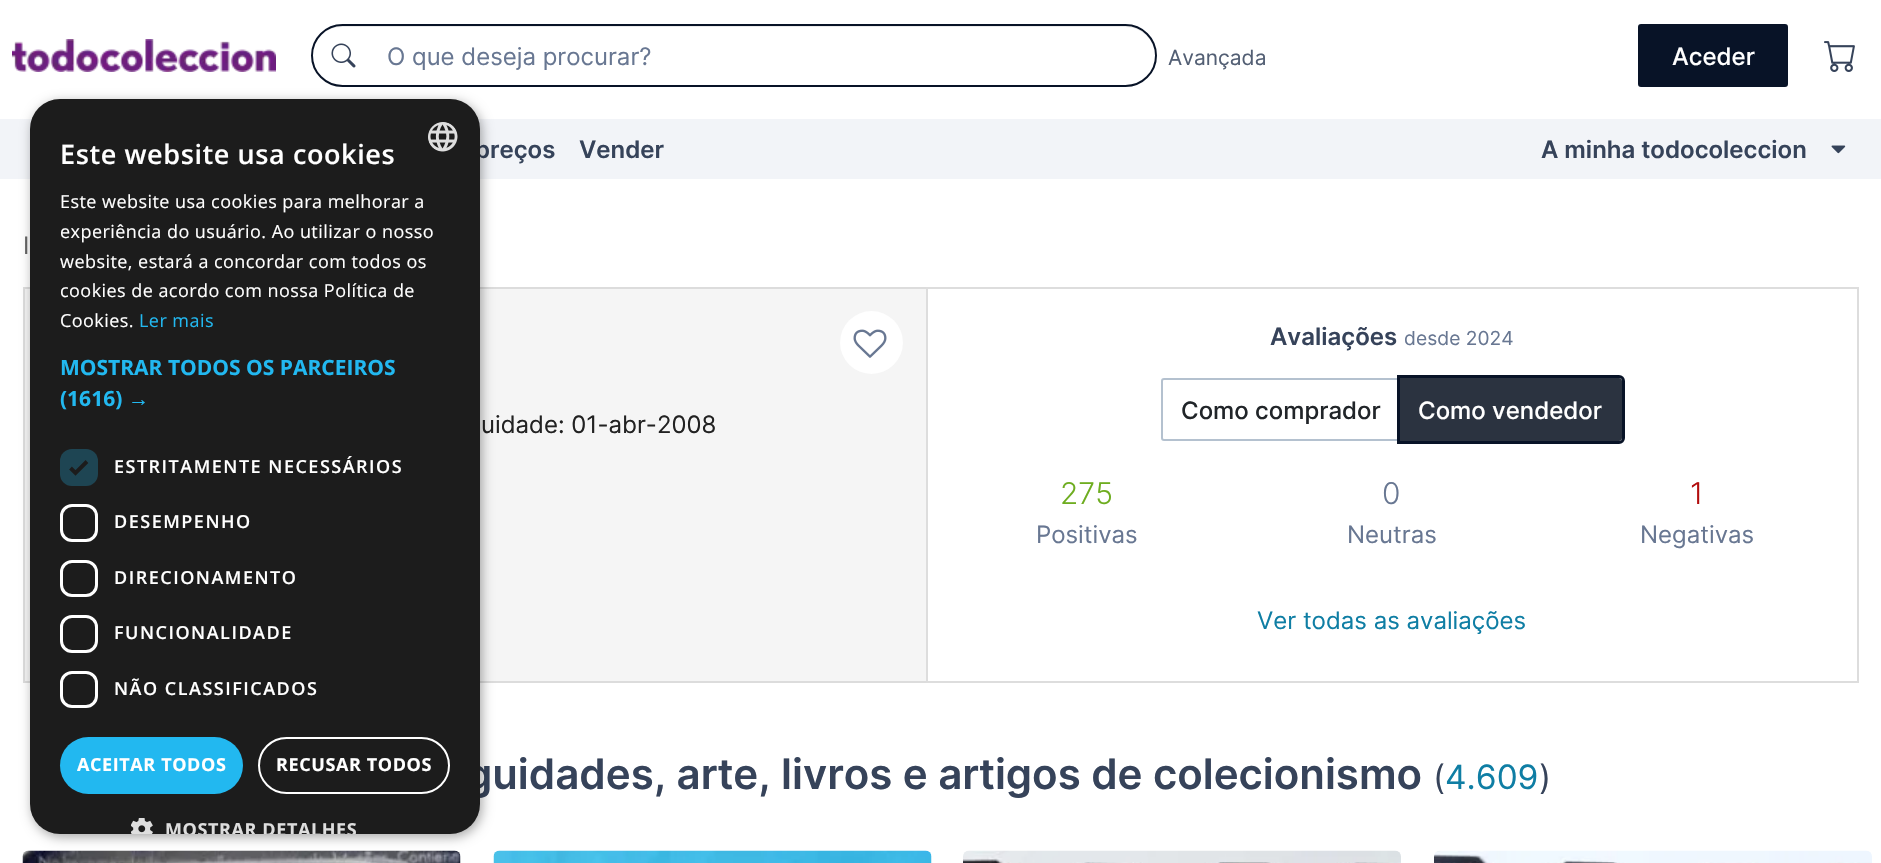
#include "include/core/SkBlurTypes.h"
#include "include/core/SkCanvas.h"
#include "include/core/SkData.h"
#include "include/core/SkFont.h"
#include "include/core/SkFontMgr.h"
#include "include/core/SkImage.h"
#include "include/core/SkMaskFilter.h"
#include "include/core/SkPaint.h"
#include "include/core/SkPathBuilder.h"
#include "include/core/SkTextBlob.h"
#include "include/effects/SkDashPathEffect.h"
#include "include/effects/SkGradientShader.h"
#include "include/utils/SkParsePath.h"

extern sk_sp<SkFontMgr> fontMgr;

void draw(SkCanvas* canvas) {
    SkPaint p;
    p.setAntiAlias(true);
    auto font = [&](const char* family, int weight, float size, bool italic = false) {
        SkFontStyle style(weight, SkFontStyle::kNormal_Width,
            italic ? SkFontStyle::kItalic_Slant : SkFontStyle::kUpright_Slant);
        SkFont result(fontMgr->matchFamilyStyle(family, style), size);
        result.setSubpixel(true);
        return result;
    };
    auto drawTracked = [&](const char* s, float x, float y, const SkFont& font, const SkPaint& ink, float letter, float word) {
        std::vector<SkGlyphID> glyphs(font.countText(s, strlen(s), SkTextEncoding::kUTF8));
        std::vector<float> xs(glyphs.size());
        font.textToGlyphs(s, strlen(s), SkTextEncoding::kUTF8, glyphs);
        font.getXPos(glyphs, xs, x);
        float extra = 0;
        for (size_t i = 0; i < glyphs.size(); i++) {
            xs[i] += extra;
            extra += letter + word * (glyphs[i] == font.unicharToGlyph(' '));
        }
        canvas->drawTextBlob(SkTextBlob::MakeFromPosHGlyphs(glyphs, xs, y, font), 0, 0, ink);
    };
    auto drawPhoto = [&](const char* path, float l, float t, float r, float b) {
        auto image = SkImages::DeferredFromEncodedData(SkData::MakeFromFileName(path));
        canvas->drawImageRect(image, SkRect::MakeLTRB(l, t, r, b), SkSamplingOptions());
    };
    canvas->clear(0xFFFFFFFF);
    drawPhoto("media/1.png", 12, 39, 276, 72);
    p.setColor(0xFFECECEC);
    canvas->drawPath(SkPathBuilder().moveTo(342, 27).lineTo(1125, 27).cubicTo(1142, 27, 1155, 40, 1155, 56).cubicTo(1155, 39, 1142, 26, 1125, 26).lineTo(342, 26).cubicTo(325, 26, 312, 39, 312, 56).cubicTo(312, 40, 325, 27, 342, 27).close().detach(), p);
    p.setStyle(SkPaint::kStroke_Style);
    p.setStrokeWidth(2);
    p.setColor(0xFF081327);
    canvas->drawRoundRect(SkRect::MakeLTRB(312, 25, 1156, 86), 30.5f, 30.5f, p);
    drawPhoto("media/2.png", 331, 43, 356, 68);
    auto font1 = font("Inter", 400, 24);
    p.setStyle(SkPaint::kFill_Style);
    p.setColor(0xFF687792);
    canvas->drawString("O que deseja procurar?", 387, 65, font1, p);
    auto font2 = font("Inter", 400, 21);
    p.setColor(0xFF535F74);
    canvas->drawString("Avançada", 1168, 65, font2, p);
    p.setColor(0xFF081327);
    canvas->drawRoundRect(SkRect::MakeLTRB(1639, 25, 1787, 86), 2, 2, p);
    p.setStyle(SkPaint::kStroke_Style);
    canvas->drawRoundRect(SkRect::MakeLTRB(1639, 25, 1787, 86), 2, 2, p);
    auto font3 = font("Inter", 500, 24);
    p.setStyle(SkPaint::kFill_Style);
    p.setColor(0xFFFFFFFF);
    canvas->drawString("Aceder", 1672, 65, font3, p);
    drawPhoto("media/3.png", 1824, 41, 1855, 72);
    p.setColor(0xFFF2F4F8);
    canvas->drawRect(SkRect::MakeLTRB(0, 119, 1881, 179), p);
    auto font4 = font("Inter", 600, 24);
    p.setColor(0xFF36435A);
    {
        const struct { const char* s; float x, y; } items[] = {
            {"preços", 475, 158},
            {"Vender", 579, 158},
            {"A minha todocoleccion", 1541, 158},
        };
        for (auto [s, x, y] : items) {
            canvas->drawString(s, x, y, font4, p);
        }
    }
    drawPhoto("media/4.png", 1831, 145, 1846, 154);
    p.setColor(0xFF666666);
    canvas->drawString("I", 23, 254, font1, p);
    {
        const struct { float l, t, r, b; SkColor color; } items[] = {
            {25, 289, 926, 681, 0xFFF5F5F5},
            {23, 287, 926, 289, 0xFFDCDCDC},
            {23, 681, 926, 683, 0xFFDCDCDC},
            {23, 287, 25, 683, 0xFFDCDCDC},
        };
        for (auto [l, t, r, b, color] : items) {
            p.setColor(color);
            canvas->drawRect(SkRect::MakeLTRB(l, t, r, b), p);
        }
    }
    p.setColor(0xFFFFFFFF);
    canvas->drawCircle(871.5f, 342.5f, 31.5f, p);
    drawPhoto("media/5.png", 853, 329, 887, 358);
    p.setColor(0xFF222222);
    canvas->drawString("uidade: 01-abr-2008", 481, 433, font1, p);
    p.setStyle(SkPaint::kStroke_Style);
    p.setColor(0xFFDDDDDD);
    canvas->drawRect(SkRect::MakeLTRB(927, 288, 1858, 682), p);
    p.setStyle(SkPaint::kFill_Style);
    p.setColor(0xFF36435A);
    canvas->drawString("Avaliações", 1270, 345, font4, p);
    auto font5 = font("Inter", 400, 19.25f);
    p.setColor(0xFF687792);
    canvas->drawString("desde 2024", 1404, 345, font5, p);
    p.setStyle(SkPaint::kStroke_Style);
    p.setColor(0xFFB4C1CF);
    canvas->drawPath(SkPathBuilder().moveTo(1164, 379).lineTo(1400, 379).lineTo(1400, 440).lineTo(1164, 440).cubicTo(1163, 440, 1162, 439, 1162, 438).lineTo(1162, 381).cubicTo(1162, 380, 1163, 379, 1164, 379).close().detach(), p);
    p.setStyle(SkPaint::kFill_Style);
    p.setColor(0xFF212529);
    canvas->drawString("Como comprador", 1181, 419, font3, p);
    p.setStyle(SkPaint::kStroke_Style);
    p.setStrokeWidth(3);
    p.setColor(0xFF081327);
    canvas->drawPath(SkPathBuilder().moveTo(1398.5f, 376.5f).lineTo(1619, 376.5f).cubicTo(1621.5f, 376.5f, 1623.5f, 378.5f, 1623.5f, 381).lineTo(1623.5f, 438).cubicTo(1623.5f, 440.5f, 1621.5f, 442.5f, 1619, 442.5f).lineTo(1398.5f, 442.5f).close().detach(), p);
    p.setStyle(SkPaint::kFill_Style);
    p.setColor(0xFF2B3340);
    canvas->drawPath(SkPathBuilder().moveTo(1401, 379).lineTo(1619, 379).cubicTo(1620, 379, 1621, 380, 1621, 381).lineTo(1621, 438).cubicTo(1621, 439, 1620, 440, 1619, 440).lineTo(1401, 440).close().detach(), p);
    p.setStyle(SkPaint::kStroke_Style);
    p.setStrokeWidth(2);
    canvas->drawPath(SkPathBuilder().moveTo(1401, 379).lineTo(1619, 379).cubicTo(1620, 379, 1621, 380, 1621, 381).lineTo(1621, 438).cubicTo(1621, 439, 1620, 440, 1619, 440).lineTo(1401, 440).close().detach(), p);
    p.setStyle(SkPaint::kFill_Style);
    p.setColor(0xFFFFFFFF);
    canvas->drawString("Como vendedor", 1418, 419, font3, p);
    auto font6 = font("Inter", 300, 30);
    p.setColor(0xFF6EAD20);
    canvas->drawString("275", 1060, 504, font6, p);
    p.setColor(0xFF687792);
    canvas->drawString("0", 1382, 504, font6, p);
    p.setColor(0xFFB20D0D);
    canvas->drawString("1", 1690, 504, font6, p);
    p.setColor(0xFF687792);
    {
        const struct { const char* s; float x, y; } items[] = {
            {"Positivas", 1036, 543},
            {"Neutras", 1347, 543},
            {"Negativas", 1640, 543},
        };
        for (auto [s, x, y] : items) {
            canvas->drawString(s, x, y, font1, p);
        }
    }
    p.setColor(0xFF0F7EA4);
    canvas->drawString("Ver todas as avaliações", 1257, 629, font1, p);
    auto font7 = font("Inter", 600, 42);
    p.setColor(0xFF36435A);
    canvas->drawString("guidades, arte, livros e artigos de colecionismo", 466, 789, font7, p);
    auto font8 = font("Inter", 400, 33.5f);
    canvas->drawString("(", 1433, 789, font8, p);
    p.setColor(0xFF0F7EA4);
    canvas->drawString("4.609", 1445, 789, font8, p);
    p.setColor(0xFF36435A);
    canvas->drawString(")", 1539, 789, font8, p);
    drawPhoto("media/6.png", 22, 850, 461, 863);
    drawPhoto("media/7.png", 493, 850, 932, 863);
    drawPhoto("media/8.png", 963, 850, 1401, 863);
    drawPhoto("media/9.png", 1434, 850, 1872, 863);
    p.setColor(0x59000000);
    p.setMaskFilter(SkMaskFilter::MakeBlur(kNormal_SkBlurStyle, 6));
    canvas->drawRoundRect(SkRect::MakeLTRB(32, 102, 482, 837), 30, 30, p);
    p.setMaskFilter(nullptr);
    p.setColor(0xFF1C1C1C);
    canvas->drawRoundRect(SkRect::MakeLTRB(30, 99, 480, 834), 30, 30, p);
    auto font9 = font("Open Sans", 600, 27);
    p.setColor(0xFFFFFFFF);
    drawTracked("Este website usa cookies", 60, 164, font9, p, 0.6f, 0);
    drawPhoto("media/10.png", 428, 122, 458, 152);
    auto font10 = font("Open Sans", 400, 18);
    {
        const struct { const char* s; float x, y; } items[] = {
            {"Este website usa cookies para melhorar a", 60, 208},
            {"experiência do usuário. Ao utilizar o nosso", 60, 238},
            {"website, estará a concordar com todos os", 60, 268},
            {"cookies de acordo com nossa Política de", 60, 297},
            {"Cookies.", 60, 327},
        };
        for (auto [s, x, y] : items) {
            drawTracked(s, x, y, font10, p, 0.45f, 0);
        }
    }
    p.setColor(0xFF22B8F0);
    drawTracked("Ler mais", 139, 327, font10, p, 0.45f, 0);
    auto font11 = font("Open Sans", 700, 21);
    canvas->drawString("MOSTRAR TODOS OS PARCEIROS", 60, 375, font11, p);
    canvas->drawString("(1616)", 60, 406, font11, p);
    auto font12 = font("Liberation Sans", 700, 21);
    canvas->drawString("→", 128, 406, font12, p);
    p.setColor(0xFF1E4553);
    canvas->drawRoundRect(SkRect::MakeLTRB(60, 449, 98, 486), 12, 12, p);
    p.setStyle(SkPaint::kStroke_Style);
    p.setStrokeWidth(3.9f);
    p.setColor(0xFF1C1C1C);
    canvas->drawPath(SkPathBuilder().moveTo(70.5f, 468).lineTo(75.5f, 473).lineTo(87, 461.5f).detach(), p);
    auto font13 = font("Open Sans", 600, 18);
    p.setStyle(SkPaint::kFill_Style);
    p.setColor(0xFFFFFFFF);
    drawTracked("ESTRITAMENTE NECESSÁRIOS", 114, 473, font13, p, 1.5f, 0);
    p.setStyle(SkPaint::kStroke_Style);
    p.setStrokeWidth(3);
    canvas->drawRoundRect(SkRect::MakeLTRB(61.5f, 505.5f, 96.5f, 540.5f), 10.5f, 10.5f, p);
    p.setStyle(SkPaint::kFill_Style);
    drawTracked("DESEMPENHO", 114, 528, font13, p, 1.5f, 0);
    p.setStyle(SkPaint::kStroke_Style);
    canvas->drawRoundRect(SkRect::MakeLTRB(61.5f, 561.5f, 96.5f, 595.5f), 10.5f, 10.5f, p);
    p.setStyle(SkPaint::kFill_Style);
    drawTracked("DIRECIONAMENTO", 114, 584, font13, p, 1.5f, 0);
    p.setStyle(SkPaint::kStroke_Style);
    canvas->drawRoundRect(SkRect::MakeLTRB(61.5f, 616.5f, 96.5f, 651.5f), 10.5f, 10.5f, p);
    p.setStyle(SkPaint::kFill_Style);
    drawTracked("FUNCIONALIDADE", 114, 639, font13, p, 1.5f, 0);
    p.setStyle(SkPaint::kStroke_Style);
    canvas->drawRoundRect(SkRect::MakeLTRB(61.5f, 672.5f, 96.5f, 706.5f), 10.5f, 10.5f, p);
    p.setStyle(SkPaint::kFill_Style);
    drawTracked("NÃO CLASSIFICADOS", 114, 695, font13, p, 1.5f, 0);
    p.setColor(0xFF22B8F0);
    canvas->drawRoundRect(SkRect::MakeLTRB(60, 737, 243, 794), 28.5f, 28.5f, p);
    auto font14 = font("Open Sans", 700, 18);
    p.setColor(0xFFFFFFFF);
    drawTracked("ACEITAR TODOS", 77, 771, font14, p, 0.6f, 0);
    p.setStyle(SkPaint::kStroke_Style);
    p.setStrokeWidth(2);
    canvas->drawRoundRect(SkRect::MakeLTRB(259, 738, 449, 793), 27.5f, 27.5f, p);
    p.setStyle(SkPaint::kFill_Style);
    drawTracked("RECUSAR TODOS", 276, 771, font14, p, 0.6f, 0);
    drawPhoto("media/11.png", 131, 818, 153, 834);
    canvas->save();
    canvas->clipPath(SkPathBuilder().moveTo(60, 99).lineTo(450, 99).cubicTo(466.5f, 99, 480, 112.5f, 480, 129).lineTo(480, 804).cubicTo(480, 820.5f, 466.5f, 834, 450, 834).lineTo(60, 834).cubicTo(43.5f, 834, 30, 820.5f, 30, 804).lineTo(30, 129).cubicTo(30, 112.5f, 43.5f, 99, 60, 99).close().detach(), true);
    p.setColor(0xFFDDDDDD);
    drawTracked("MOSTRAR DETALHES", 165, 836, font14, p, 0.6f, 0);
    canvas->restore();
}
